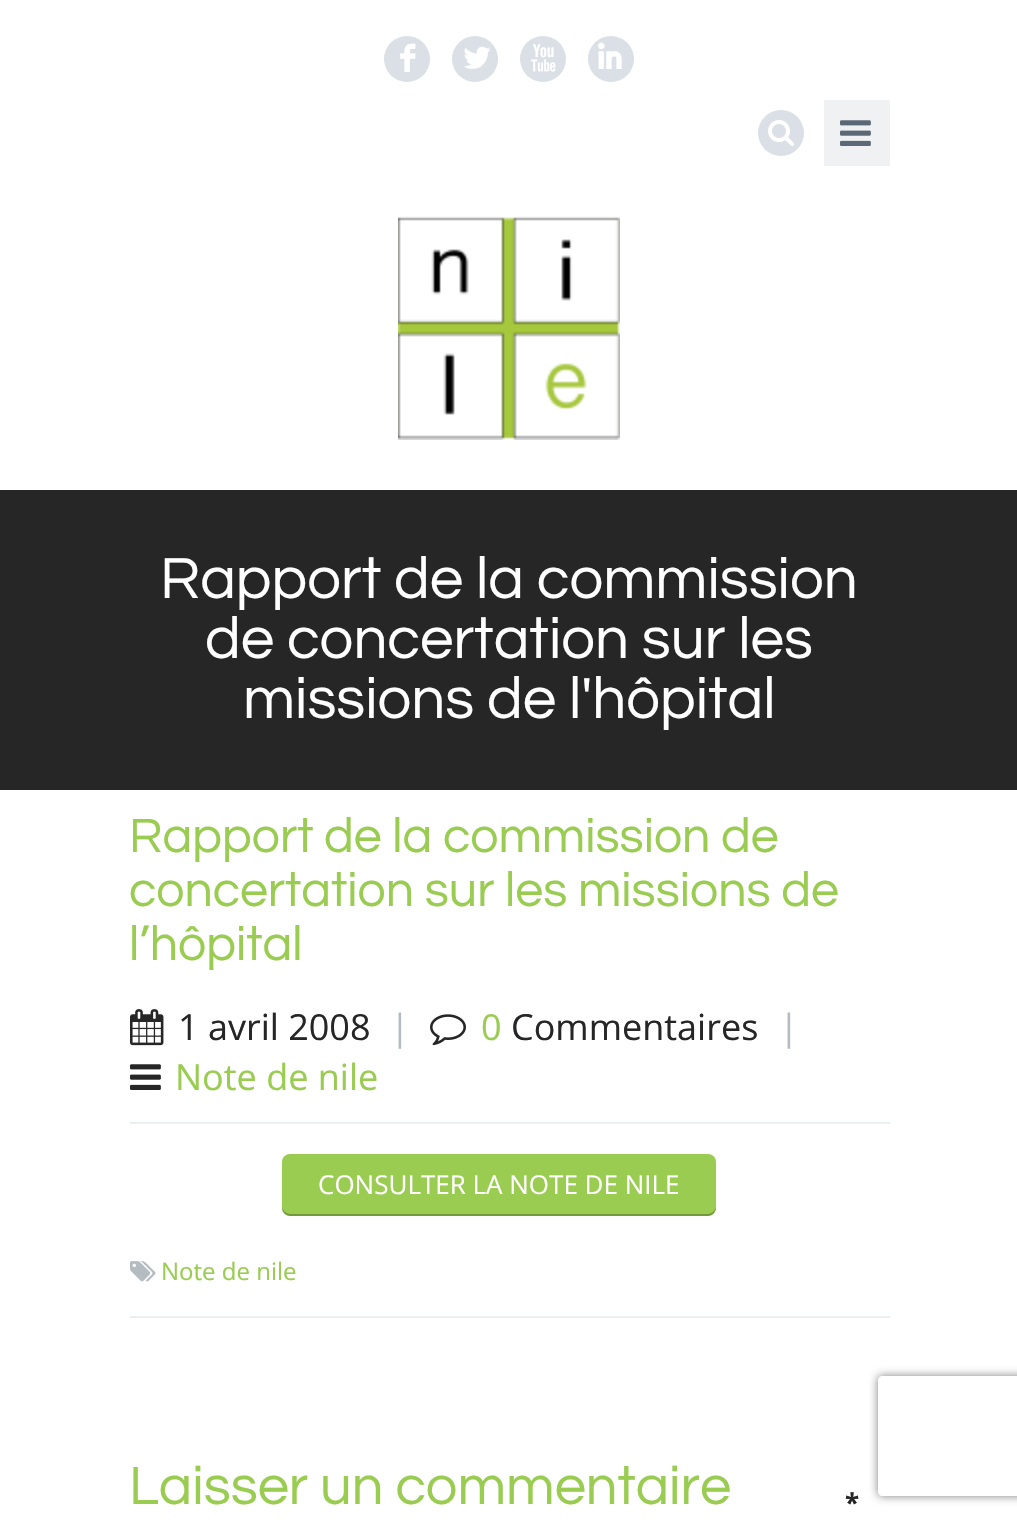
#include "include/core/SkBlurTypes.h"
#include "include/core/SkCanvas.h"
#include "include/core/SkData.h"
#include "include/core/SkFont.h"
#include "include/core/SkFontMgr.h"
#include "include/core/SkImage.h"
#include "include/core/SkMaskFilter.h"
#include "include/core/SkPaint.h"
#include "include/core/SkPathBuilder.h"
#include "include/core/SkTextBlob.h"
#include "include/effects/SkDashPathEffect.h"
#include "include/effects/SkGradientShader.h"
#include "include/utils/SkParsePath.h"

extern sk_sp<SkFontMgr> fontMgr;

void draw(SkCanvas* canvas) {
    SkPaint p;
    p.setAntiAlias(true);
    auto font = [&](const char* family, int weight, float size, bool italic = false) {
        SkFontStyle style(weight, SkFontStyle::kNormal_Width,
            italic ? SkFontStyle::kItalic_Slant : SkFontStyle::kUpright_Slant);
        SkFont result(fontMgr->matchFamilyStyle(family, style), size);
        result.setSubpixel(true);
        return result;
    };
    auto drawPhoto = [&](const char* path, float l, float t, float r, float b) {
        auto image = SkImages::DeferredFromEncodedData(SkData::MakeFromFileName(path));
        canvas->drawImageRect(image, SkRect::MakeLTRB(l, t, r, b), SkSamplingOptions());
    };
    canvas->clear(0xFFFFFFFF);
    p.setColor(0xFFDAE0E6);
    canvas->drawCircle(407, 59, 23, p);
    auto font1 = font("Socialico", 400, 46);
    p.setColor(0xFFFFFFFF);
    canvas->drawString("F", 398, 74, font1, p);
    p.setColor(0xFFDAE0E6);
    canvas->drawCircle(475, 59, 23, p);
    p.setColor(0xFFFFFFFF);
    canvas->drawString("L", 458, 74, font1, p);
    p.setColor(0xFFDAE0E6);
    canvas->drawCircle(543, 59, 23, p);
    p.setColor(0xFFFFFFFF);
    canvas->drawString("X", 529, 74, font1, p);
    p.setColor(0xFFDAE0E6);
    canvas->drawCircle(611, 59, 23, p);
    p.setColor(0xFFFFFFFF);
    canvas->drawString("I", 596, 74, font1, p);
    p.setColor(0xFFDAE0E6);
    canvas->drawCircle(781, 133, 23, p);
    drawPhoto("media/1.png", 768, 120, 794, 146);
    p.setColor(0xFFEFF1F2);
    canvas->drawRect(SkRect::MakeLTRB(824, 100, 890, 166), p);
    drawPhoto("media/2.png", 840, 120, 871, 146);
    drawPhoto("media/3.png", 398, 216, 620, 440);
    p.setColor(0xFF262626);
    canvas->drawRect(SkRect::MakeLTRB(0, 490, 1017, 790), p);
    auto font2 = font("Questrial", 400, 60);
    p.setColor(0xFFFFFFFF);
    {
        const struct { const char* s; float x, y; } items[] = {
            {"Rapport de la commission", 160, 598},
            {"de concertation sur les", 205, 658},
            {"missions de l'hôpital", 243, 718},
        };
        for (auto [s, x, y] : items) {
            canvas->drawString(s, x, y, font2, p);
        }
    }
    auto font3 = font("Questrial", 400, 50);
    p.setColor(0xFF99CC50);
    {
        const struct { const char* s; float x, y; } items[] = {
            {"Rapport de la commission de", 129, 852},
            {"concertation sur les missions de", 129, 906},
            {"l’hôpital", 129, 960},
        };
        for (auto [s, x, y] : items) {
            canvas->drawString(s, x, y, font3, p);
        }
    }
    p.setColor(0xFFEBEFF2);
    canvas->drawRect(SkRect::MakeLTRB(130, 1122, 890, 1124), p);
    drawPhoto("media/4.png", 130, 1009, 164, 1046);
    auto font4 = font("Open Sans", 400, 36);
    p.setColor(0xFF262626);
    canvas->drawString("1 avril 2008", 178, 1040, font4, p);
    p.setColor(0xFFB4BBC1);
    canvas->drawString("|", 390, 1040, font4, p);
    drawPhoto("media/5.png", 430, 1014, 466, 1046);
    p.setColor(0xFF99CC50);
    canvas->drawString("0", 481, 1040, font4, p);
    p.setColor(0xFF262626);
    canvas->drawString("Commentaires", 511, 1040, font4, p);
    p.setColor(0xFFB4BBC1);
    canvas->drawString("|", 779, 1040, font4, p);
    drawPhoto("media/6.png", 130, 1064, 161, 1090);
    p.setColor(0xFF99CC50);
    canvas->drawString("Note de nile", 175, 1090, font4, p);
    canvas->drawRoundRect(SkRect::MakeLTRB(282, 1154, 716, 1216), 8, 8, p);
    p.setColor(0x40000000);
    canvas->drawPath(SkPathBuilder().moveTo(282, 1206).lineTo(282, 1208).cubicTo(282, 1212, 286, 1216, 290, 1216).lineTo(708, 1216).cubicTo(712, 1216, 716, 1212, 716, 1208).lineTo(716, 1206).cubicTo(716, 1210, 712, 1214, 708, 1214).lineTo(290, 1214).cubicTo(286, 1214, 282, 1210, 282, 1206).close().detach(), p);
    auto font5 = font("Open Sans", 400, 26);
    p.setColor(0xFFFFFFFF);
    canvas->drawString("CONSULTER LA NOTE DE NILE", 318, 1194, font5, p);
    p.setColor(0xFFEBEFF2);
    canvas->drawRect(SkRect::MakeLTRB(130, 1316, 890, 1318), p);
    drawPhoto("media/7.png", 130, 1261, 156, 1282);
    auto font6 = font("Open Sans", 400, 24);
    p.setColor(0xFF99CC50);
    canvas->drawString("Note de nile", 161, 1280, font6, p);
    auto font7 = font("Questrial", 400, 56);
    canvas->drawString("Laisser un commentaire", 129, 1504, font7, p);
    auto font8 = font("Open Sans", 700, 26);
    p.setColor(0xFF262626);
    canvas->drawString("*", 845, 1512, font8, p);
    canvas->save();
    canvas->clipPath(SkPathBuilder(SkPathFillType::kEvenOdd).moveTo(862, 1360).lineTo(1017, 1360).lineTo(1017, 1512).lineTo(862, 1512).close().moveTo(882, 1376).lineTo(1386, 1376).cubicTo(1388, 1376, 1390, 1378, 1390, 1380).lineTo(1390, 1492).cubicTo(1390, 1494, 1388, 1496, 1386, 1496).lineTo(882, 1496).cubicTo(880, 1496, 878, 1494, 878, 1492).lineTo(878, 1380).cubicTo(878, 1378, 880, 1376, 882, 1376).close().detach(), true);
    p.setColor(0xFF808080);
    p.setMaskFilter(SkMaskFilter::MakeBlur(kNormal_SkBlurStyle, 5));
    canvas->drawRoundRect(SkRect::MakeLTRB(878, 1376, 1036, 1496), 4, 4, p);
    p.setMaskFilter(nullptr);
    canvas->restore();
}
